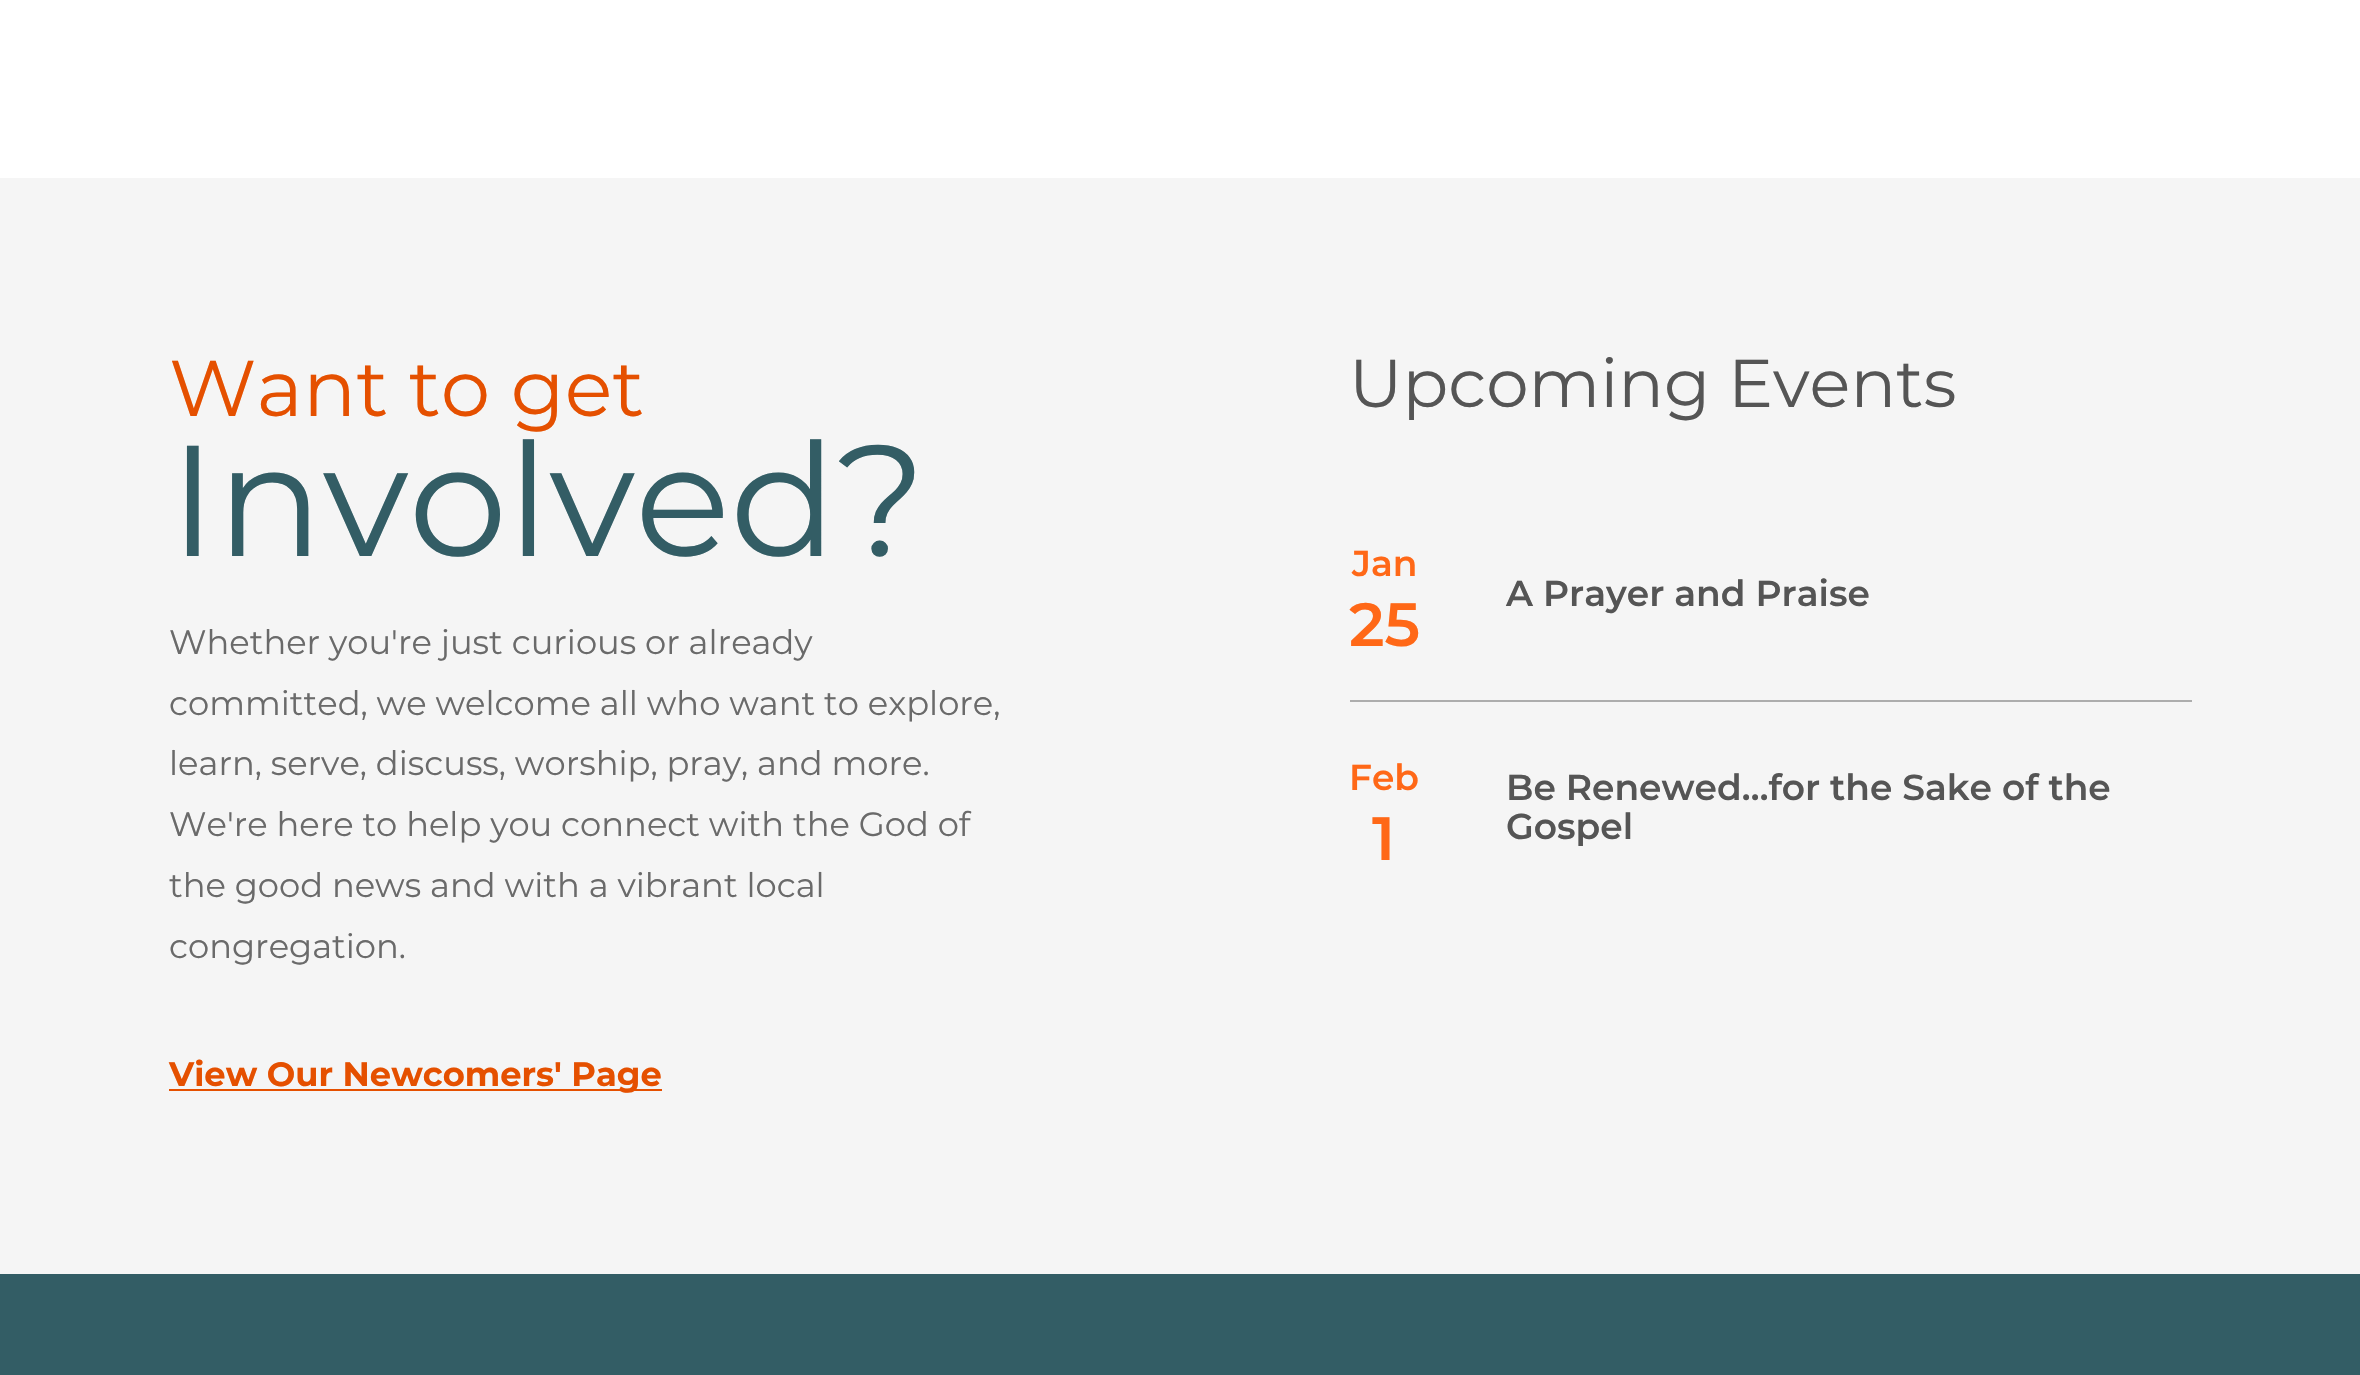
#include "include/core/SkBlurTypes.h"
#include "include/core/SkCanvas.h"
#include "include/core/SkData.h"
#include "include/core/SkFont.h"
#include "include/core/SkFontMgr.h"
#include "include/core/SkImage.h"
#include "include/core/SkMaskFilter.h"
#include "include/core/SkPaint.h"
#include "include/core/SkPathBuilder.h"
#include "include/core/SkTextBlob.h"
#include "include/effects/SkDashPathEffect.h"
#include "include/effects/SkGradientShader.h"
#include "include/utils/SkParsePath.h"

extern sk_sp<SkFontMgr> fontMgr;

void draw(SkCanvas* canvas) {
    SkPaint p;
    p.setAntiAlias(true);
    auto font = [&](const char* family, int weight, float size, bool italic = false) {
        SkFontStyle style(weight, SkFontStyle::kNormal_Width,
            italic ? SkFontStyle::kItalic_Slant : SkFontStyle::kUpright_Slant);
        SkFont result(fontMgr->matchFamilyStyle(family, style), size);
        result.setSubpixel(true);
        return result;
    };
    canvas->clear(0xFFFFFFFF);
    p.setColor(0xFFF5F5F5);
    canvas->drawRect(SkRect::MakeLTRB(0, 178, 2360, 1274), p);
    auto font1 = font("Montserrat", 400, 78.75f);
    p.setColor(0xFFE55000);
    canvas->drawString("Want to get", 169, 416, font1, p);
    auto font2 = font("Montserrat", 400, 157.5f);
    p.setColor(0xFF335D65);
    canvas->drawString("Involved?", 169, 556, font2, p);
    auto font3 = font("Montserrat", 400, 33.75f);
    p.setColor(0xFF6A6A6A);
    {
        const struct { const char* s; float x, y; } items[] = {
            {"Whether you're just curious or already", 169, 654},
            {"committed, we welcome all who want to explore,", 169, 715},
            {"learn, serve, discuss, worship, pray, and more.", 169, 775},
            {"We're here to help you connect with the God of", 169, 836},
            {"the good news and with a vibrant local", 169, 897},
            {"congregation.", 169, 958},
        };
        for (auto [s, x, y] : items) {
            canvas->drawString(s, x, y, font3, p);
        }
    }
    p.setColor(0xFFE55000);
    canvas->drawRect(SkRect::MakeLTRB(169, 1089, 662, 1091), p);
    auto font4 = font("Montserrat", 700, 33.75f);
    canvas->drawString("View Our Newcomers' Page", 169, 1086, font4, p);
    auto font5 = font("Montserrat", 400, 67.5f);
    p.setColor(0xFF555555);
    canvas->drawString("Upcoming Events", 1349, 407, font5, p);
    p.setColor(0xFFADADAD);
    canvas->drawRect(SkRect::MakeLTRB(1350, 700, 2192, 702), p);
    auto font6 = font("Montserrat", 600, 36);
    p.setColor(0xFFFF6817);
    canvas->drawString("Jan", 1352, 576, font6, p);
    auto font7 = font("Montserrat", 600, 61);
    canvas->drawString("25", 1349, 646, font7, p);
    p.setColor(0xFF555555);
    canvas->drawString("A Prayer and Praise", 1506, 606, font6, p);
    p.setColor(0xFFFF6817);
    canvas->drawString("Feb", 1349, 790, font6, p);
    canvas->drawString("1", 1372, 860, font7, p);
    p.setColor(0xFF555555);
    canvas->drawString("Be Renewed…for the Sake of the", 1506, 800, font6, p);
    canvas->drawString("Gospel", 1506, 839, font6, p);
    p.setColor(0xFF335D65);
    canvas->drawRect(SkRect::MakeLTRB(0, 1274, 2360, 1375), p);
}
